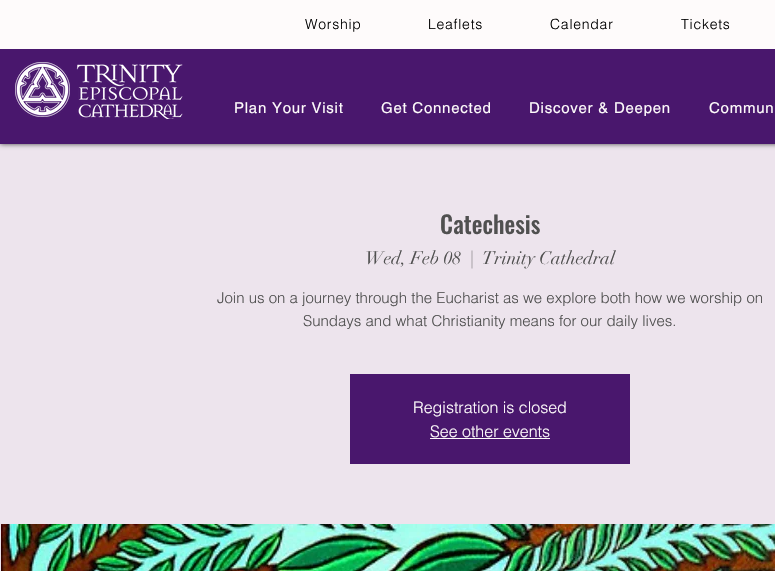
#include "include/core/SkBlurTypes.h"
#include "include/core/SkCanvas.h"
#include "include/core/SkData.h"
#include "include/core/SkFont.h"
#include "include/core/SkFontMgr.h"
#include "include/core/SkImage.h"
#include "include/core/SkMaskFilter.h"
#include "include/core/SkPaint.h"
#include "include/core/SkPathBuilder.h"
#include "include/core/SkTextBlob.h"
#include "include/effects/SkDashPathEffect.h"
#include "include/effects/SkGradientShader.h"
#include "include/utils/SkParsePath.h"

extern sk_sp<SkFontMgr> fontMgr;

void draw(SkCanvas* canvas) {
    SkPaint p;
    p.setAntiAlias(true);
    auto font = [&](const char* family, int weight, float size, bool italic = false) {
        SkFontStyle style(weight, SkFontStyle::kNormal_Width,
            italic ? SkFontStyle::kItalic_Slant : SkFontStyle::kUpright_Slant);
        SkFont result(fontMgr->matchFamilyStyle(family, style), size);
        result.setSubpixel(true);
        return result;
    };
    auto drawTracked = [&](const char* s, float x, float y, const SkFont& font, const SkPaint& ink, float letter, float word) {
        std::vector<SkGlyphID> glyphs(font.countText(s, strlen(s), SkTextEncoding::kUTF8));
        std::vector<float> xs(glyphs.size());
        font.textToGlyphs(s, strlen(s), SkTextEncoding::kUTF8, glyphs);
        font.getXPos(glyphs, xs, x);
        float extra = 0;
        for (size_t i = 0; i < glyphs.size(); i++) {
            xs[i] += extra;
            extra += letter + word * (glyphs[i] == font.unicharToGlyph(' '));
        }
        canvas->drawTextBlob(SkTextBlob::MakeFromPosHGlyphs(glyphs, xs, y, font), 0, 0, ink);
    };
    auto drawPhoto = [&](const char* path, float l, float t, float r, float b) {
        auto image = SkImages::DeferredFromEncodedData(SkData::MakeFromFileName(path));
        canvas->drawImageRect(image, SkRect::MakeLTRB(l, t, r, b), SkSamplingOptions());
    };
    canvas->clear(0xFFEDE4ED);
    p.setColor(0xB3000000);
    p.setMaskFilter(SkMaskFilter::MakeBlur(kNormal_SkBlurStyle, 2.5f));
    canvas->drawRect(SkRect::MakeLTRB(0, 0, 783, 144), p);
    p.setMaskFilter(nullptr);
    p.setColor(0xFF49176D);
    canvas->drawRect(SkRect::MakeLTRB(0, 49, 775, 144), p);
    p.setColor(0xFFFEFBFB);
    canvas->drawRect(SkRect::MakeLTRB(0, 0, 775, 49), p);
    auto font1 = font("helvetica", 300, 14);
    p.setColor(0xFF000000);
    {
        const struct { const char* s; float x, y; } items[] = {
            {"Worship", 305, 29},
            {"Leaflets", 428, 29},
            {"Calendar", 550, 29},
            {"Tickets", 681, 29},
        };
        for (auto [s, x, y] : items) {
            drawTracked(s, x, y, font1, p, 0.75f, 0);
        }
    }
    drawPhoto("media/1.png", 15, 62, 70, 117);
    drawPhoto("media/2.png", 76, 64, 183, 119);
    auto font2 = font("helvetica", 400, 15);
    p.setColor(0xFFFEFBFB);
    {
        const struct { const char* s; float x, y; } items[] = {
            {"Plan Your Visit", 234, 113},
            {"Get Connected", 381, 113},
            {"Discover & Deepen", 529, 113},
            {"Commun", 709, 113},
        };
        for (auto [s, x, y] : items) {
            drawTracked(s, x, y, font2, p, 0.75f, 0);
        }
    }
    auto font3 = font("Oswald", 500, 24);
    p.setColor(0xFF505050);
    canvas->drawString("Catechesis", 440, 234, font3, p);
    auto font4 = font("didot", 400, 18);
    {
        const struct { const char* s; float x, y; } items[] = {
            {"Wed, Feb 08", 365, 264},
            {"|", 470, 264},
            {"Trinity Cathedral", 482, 264},
        };
        for (auto [s, x, y] : items) {
            canvas->drawString(s, x, y, font4, p);
        }
    }
    auto font5 = font("helvetica", 300, 15);
    canvas->drawString("Join us on a journey through the Eucharist as we explore both how we worship on", 217, 303, font5, p);
    canvas->drawString("Sundays and what Christianity means for our daily lives.", 303, 326, font5, p);
    p.setColor(0xFF49176D);
    canvas->drawRect(SkRect::MakeLTRB(350, 374, 630, 464), p);
    auto font6 = font("helvetica", 300, 16);
    p.setColor(0xFFFEFBFB);
    canvas->drawString("Registration is closed", 413, 413, font6, p);
    canvas->drawString("See other events", 430, 437, font6, p);
    canvas->drawRect(SkRect::MakeLTRB(430, 438, 550, 439), p);
    drawPhoto("media/3.png", 1, 524, 775, 571);
}
